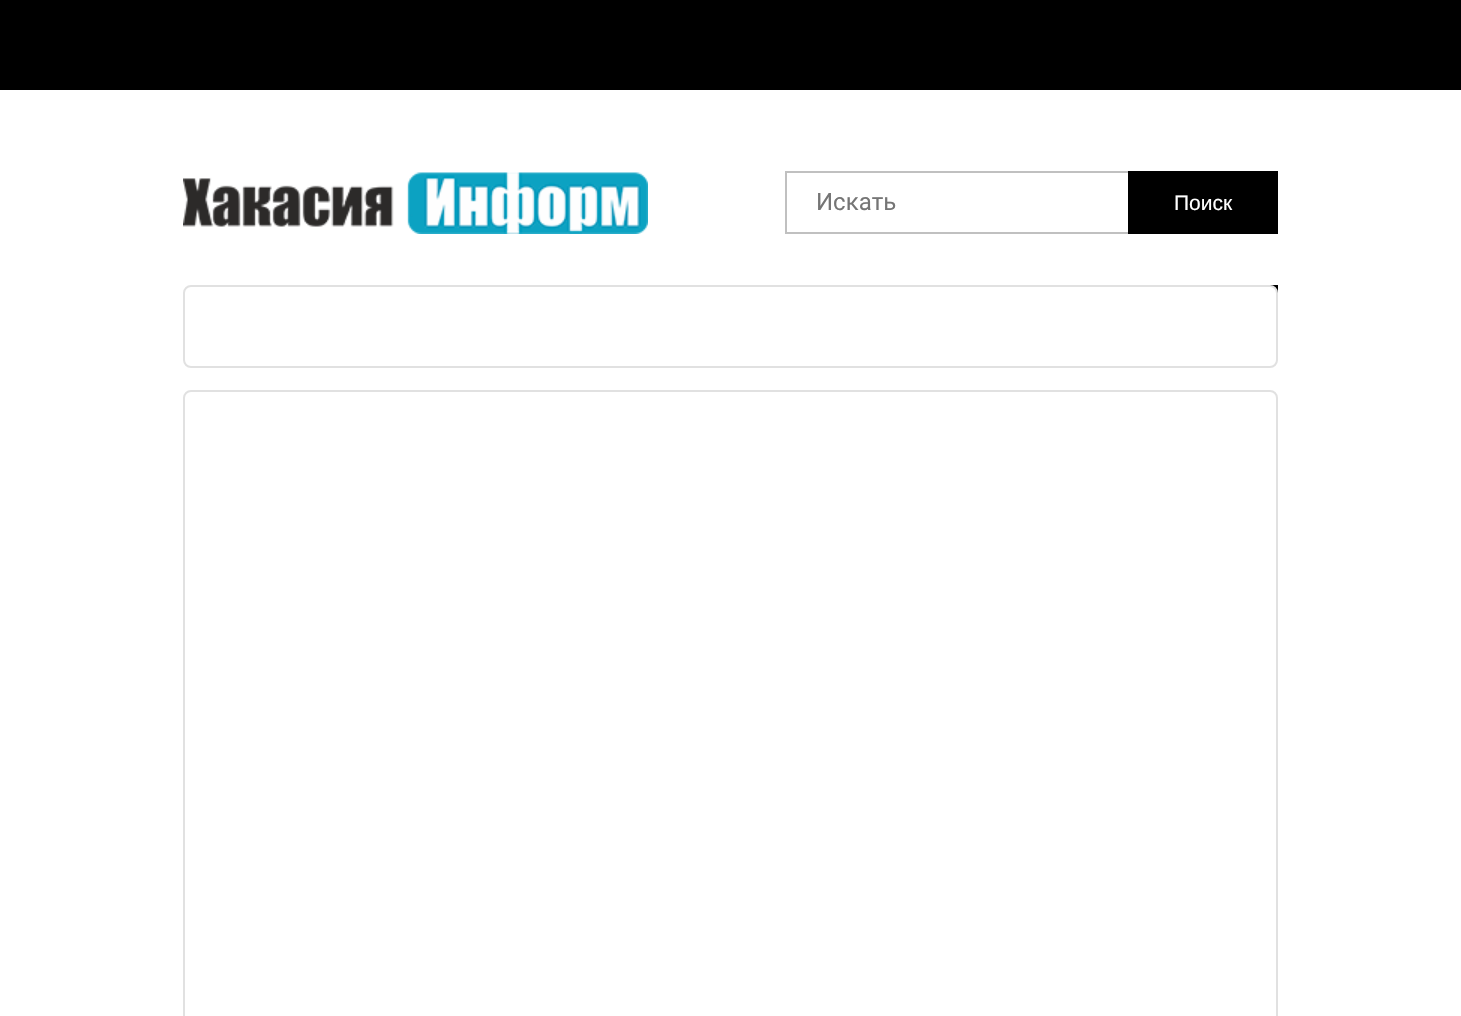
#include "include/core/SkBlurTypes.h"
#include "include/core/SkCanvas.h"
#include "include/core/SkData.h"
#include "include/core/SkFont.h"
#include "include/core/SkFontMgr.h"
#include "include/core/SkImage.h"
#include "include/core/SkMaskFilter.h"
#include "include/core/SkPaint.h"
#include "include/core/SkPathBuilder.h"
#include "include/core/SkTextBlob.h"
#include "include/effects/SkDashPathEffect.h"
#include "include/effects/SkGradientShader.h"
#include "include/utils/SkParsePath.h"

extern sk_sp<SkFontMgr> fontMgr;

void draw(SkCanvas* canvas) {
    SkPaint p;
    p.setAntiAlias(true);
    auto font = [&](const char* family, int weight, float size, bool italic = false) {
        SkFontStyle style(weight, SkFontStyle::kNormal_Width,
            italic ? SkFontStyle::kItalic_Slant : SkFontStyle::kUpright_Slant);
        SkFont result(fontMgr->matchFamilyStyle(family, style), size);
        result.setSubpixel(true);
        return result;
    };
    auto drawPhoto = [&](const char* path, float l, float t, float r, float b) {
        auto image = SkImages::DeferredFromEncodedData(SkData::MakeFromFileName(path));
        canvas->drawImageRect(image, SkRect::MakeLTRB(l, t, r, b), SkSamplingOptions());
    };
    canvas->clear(0xFFFFFFFF);
    p.setColor(0xFF000000);
    canvas->drawRect(SkRect::MakeLTRB(0, 0, 1461, 90), p);
    drawPhoto("media/1.png", 183, 172, 648, 234);
    p.setStyle(SkPaint::kStroke_Style);
    p.setStrokeWidth(2);
    p.setColor(0xFFC0C0C0);
    canvas->drawRect(SkRect::MakeLTRB(786, 172, 1129, 233), p);
    auto font1 = font("Roboto", 400, 24);
    p.setStyle(SkPaint::kFill_Style);
    p.setColor(0xFF757575);
    canvas->drawString("Искать", 816, 210, font1, p);
    p.setColor(0xFF000000);
    canvas->drawRect(SkRect::MakeLTRB(1128, 171, 1278, 234), p);
    auto font2 = font("Liberation Sans", 400, 21);
    p.setColor(0xFFFFFFFF);
    canvas->drawString("Поиск", 1174, 210, font2, p);
    p.setColor(0xFF000000);
    canvas->drawRect(SkRect::MakeLTRB(1270, 285, 1278, 293), p);
    p.setColor(0xFFFFFFFF);
    canvas->drawRoundRect(SkRect::MakeLTRB(184, 286, 1277, 367), 7, 7, p);
    p.setStyle(SkPaint::kStroke_Style);
    p.setColor(0xFFE1E1E1);
    canvas->drawRoundRect(SkRect::MakeLTRB(184, 286, 1277, 367), 7, 7, p);
    canvas->drawRoundRect(SkRect::MakeLTRB(184, 391, 1277, 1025), 7, 7, p);
}
